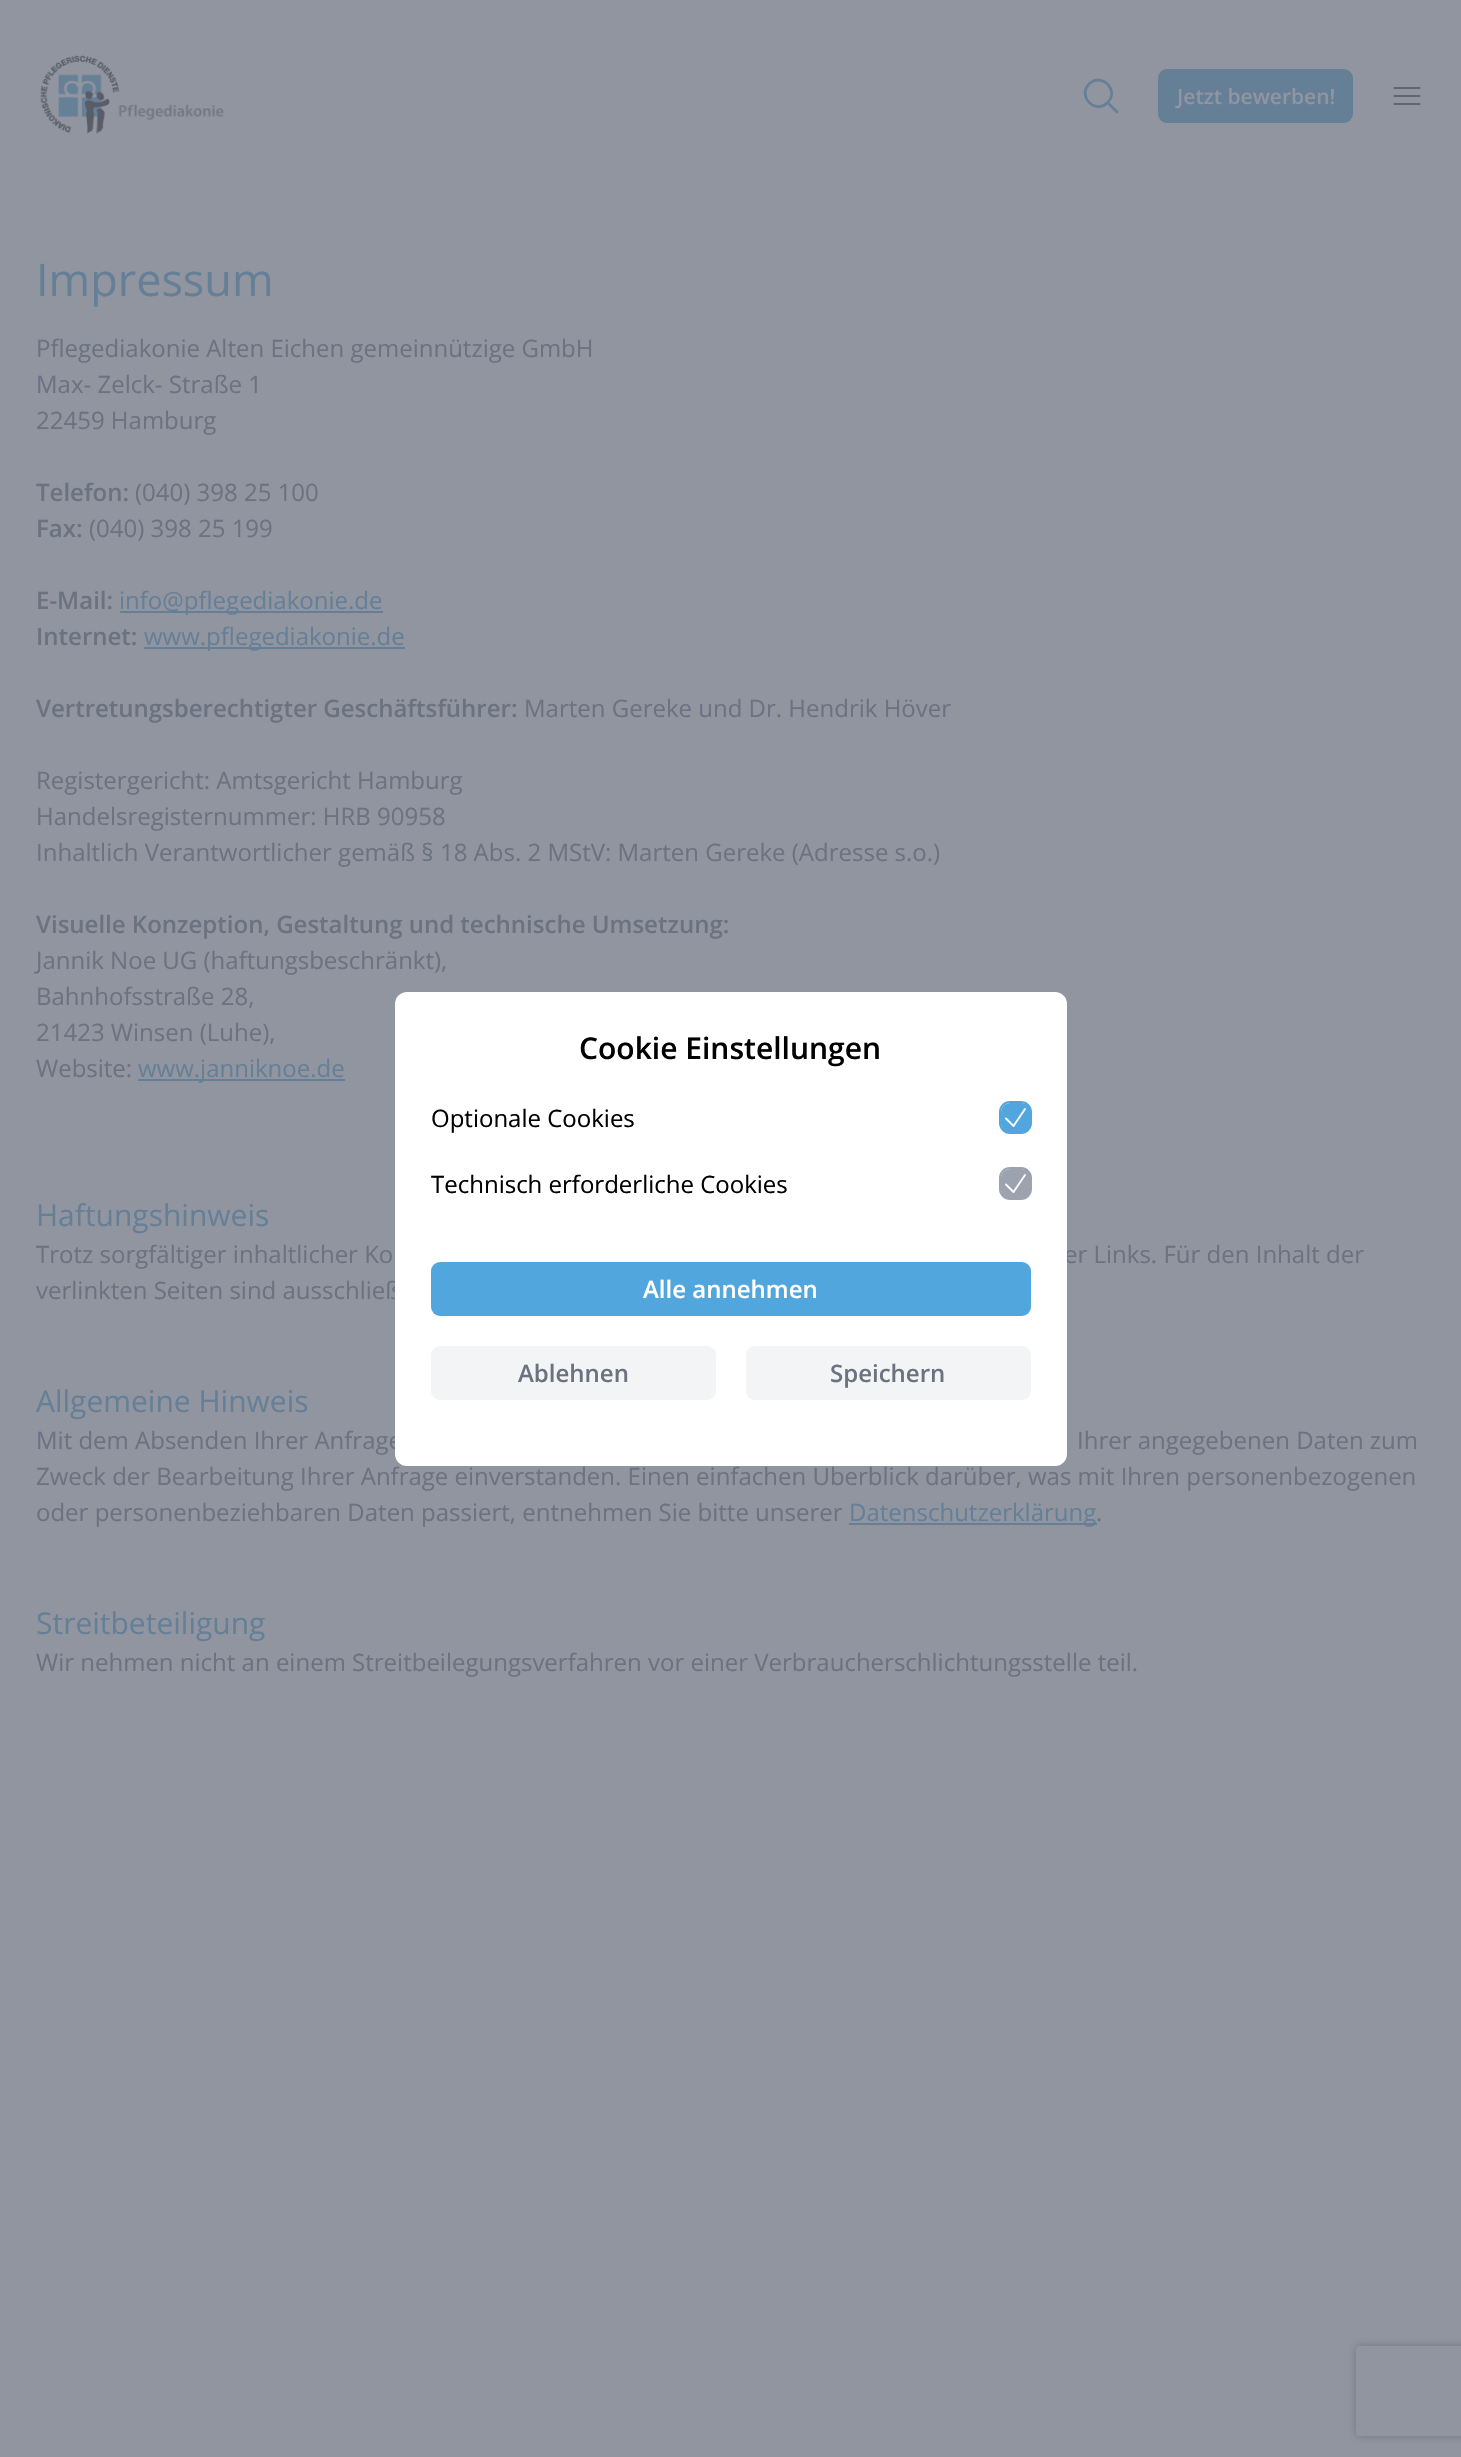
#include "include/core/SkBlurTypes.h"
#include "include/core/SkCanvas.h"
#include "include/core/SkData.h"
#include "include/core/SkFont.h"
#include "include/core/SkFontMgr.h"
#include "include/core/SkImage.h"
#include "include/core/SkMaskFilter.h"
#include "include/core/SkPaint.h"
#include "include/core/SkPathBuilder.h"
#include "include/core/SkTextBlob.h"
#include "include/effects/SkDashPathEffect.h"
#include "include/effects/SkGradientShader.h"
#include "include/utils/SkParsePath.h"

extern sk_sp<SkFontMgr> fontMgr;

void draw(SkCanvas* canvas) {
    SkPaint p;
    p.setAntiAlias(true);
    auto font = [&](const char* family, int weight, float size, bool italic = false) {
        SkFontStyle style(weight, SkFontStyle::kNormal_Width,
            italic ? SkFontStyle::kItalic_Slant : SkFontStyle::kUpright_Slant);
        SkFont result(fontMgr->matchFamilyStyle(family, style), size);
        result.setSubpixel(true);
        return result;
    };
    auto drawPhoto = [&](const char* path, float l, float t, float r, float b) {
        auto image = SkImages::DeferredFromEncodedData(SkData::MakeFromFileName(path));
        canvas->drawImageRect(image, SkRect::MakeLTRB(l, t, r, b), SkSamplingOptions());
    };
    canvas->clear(0xFF9095A0);
    drawPhoto("media/1.png", 40, 55, 224, 134);
    p.setStyle(SkPaint::kStroke_Style);
    p.setStrokeWidth(2.6f);
    p.setStrokeCap(SkPaint::kRound_Cap);
    p.setStrokeJoin(SkPaint::kRound_Join);
    p.setColor(0xFF657F97);
    canvas->drawPath(SkPathBuilder().moveTo(1117, 112).lineTo(1107.5f, 102.5f).moveTo(1107.5f, 102.5f).cubicTo(1120, 90.5f, 1101.5f, 72, 1089, 84).cubicTo(1077, 96.5f, 1095.5f, 115, 1107.5f, 102.5f).close().detach(), p);
    p.setStyle(SkPaint::kFill_Style);
    canvas->drawRoundRect(SkRect::MakeLTRB(1158, 69, 1353, 123), 9, 9, p);
    auto font1 = font("Open Sans", 600, 21);
    p.setColor(0xFF9095A0);
    canvas->drawString("Jetzt bewerben!", 1177, 104, font1, p);
    p.setStyle(SkPaint::kStroke_Style);
    p.setStrokeWidth(2.2f);
    p.setColor(0xFF5E6674);
    canvas->drawPath(SkPathBuilder().moveTo(1394.5f, 88).lineTo(1419.5f, 88).moveTo(1394.5f, 96).lineTo(1419.5f, 96).moveTo(1394.5f, 104).lineTo(1419.5f, 104).detach(), p);
    auto font2 = font("Open Sans", 400, 45);
    p.setStyle(SkPaint::kFill_Style);
    p.setColor(0xFF657F97);
    canvas->drawString("Impressum", 36, 296, font2, p);
    auto font3 = font("Open Sans", 400, 24);
    p.setColor(0xFF6B7280);
    {
        const struct { const char* s; float x, y; } items[] = {
            {"Pflegediakonie Alten Eichen gemeinnützige GmbH", 36, 357},
            {"Max- Zelck- Straße 1", 36, 393},
            {"22459 Hamburg", 36, 429},
        };
        for (auto [s, x, y] : items) {
            canvas->drawString(s, x, y, font3, p);
        }
    }
    auto font4 = font("Open Sans", 600, 24);
    canvas->drawString("Telefon:", 36, 501, font4, p);
    canvas->drawString("(040) 398 25 100", 135, 501, font3, p);
    canvas->drawString("Fax:", 36, 537, font4, p);
    canvas->drawString("(040) 398 25 199", 89, 537, font3, p);
    canvas->drawString("E-Mail:", 36, 609, font4, p);
    p.setColor(0xFF657F97);
    canvas->drawRect(SkRect::MakeLTRB(120, 611, 383, 613), p);
    canvas->drawString("info@pflegediakonie.de", 119, 609, font3, p);
    p.setColor(0xFF6B7280);
    canvas->drawString("Internet:", 36, 645, font4, p);
    p.setColor(0xFF657F97);
    canvas->drawRect(SkRect::MakeLTRB(144, 647, 405, 649), p);
    canvas->drawString("www.pflegediakonie.de", 144, 645, font3, p);
    p.setColor(0xFF6B7280);
    canvas->drawString("Vertretungsberechtigter Geschäftsführer:", 36, 717, font4, p);
    {
        const struct { const char* s; float x, y; } items[] = {
            {"Marten Gereke und Dr. Hendrik Höver", 524, 717},
            {"Registergericht: Amtsgericht Hamburg", 36, 789},
            {"Handelsregisternummer: HRB 90958", 36, 825},
            {"Inhaltlich Verantwortlicher gemäß § 18 Abs. 2 MStV: Marten Gereke (Adresse s.o.)", 36, 861},
        };
        for (auto [s, x, y] : items) {
            canvas->drawString(s, x, y, font3, p);
        }
    }
    canvas->drawString("Visuelle Konzeption, Gestaltung und technische Umsetzung:", 36, 933, font4, p);
    {
        const struct { const char* s; float x, y; } items[] = {
            {"Jannik Noe UG (haftungsbeschränkt),", 36, 969},
            {"Bahnhofsstraße 28,", 36, 1005},
            {"21423 Winsen (Luhe),", 36, 1041},
            {"Website:", 36, 1077},
        };
        for (auto [s, x, y] : items) {
            canvas->drawString(s, x, y, font3, p);
        }
    }
    p.setColor(0xFF657F97);
    canvas->drawRect(SkRect::MakeLTRB(138, 1079, 345, 1081), p);
    canvas->drawString("www.janniknoe.de", 138, 1077, font3, p);
    auto font5 = font("Open Sans", 400, 30);
    canvas->drawString("Haftungshinweis", 36, 1226, font5, p);
    p.setColor(0xFF6B7280);
    {
        const struct { const char* s; float x, y; } items[] = {
            {"Trotz sorgfältiger inhaltlicher Ko", 36, 1263},
            {"er Links. Für den Inhalt der", 1064, 1263},
            {"verlinkten Seiten sind ausschließ", 36, 1299},
        };
        for (auto [s, x, y] : items) {
            canvas->drawString(s, x, y, font3, p);
        }
    }
    p.setColor(0xFF657F97);
    canvas->drawString("Allgemeine Hinweis", 36, 1412, font5, p);
    p.setColor(0xFF6B7280);
    {
        const struct { const char* s; float x, y; } items[] = {
            {"Mit dem Absenden Ihrer Anfrage", 36, 1449},
            {"Ihrer angegebenen Daten zum", 1077, 1449},
            {"Zweck der Bearbeitung Ihrer Anfrage einverstanden. Einen einfachen Überblick darüber, was mit Ihren personenbezogenen", 36, 1485},
            {"oder personenbeziehbaren Daten passiert, entnehmen Sie bitte unserer", 36, 1521},
        };
        for (auto [s, x, y] : items) {
            canvas->drawString(s, x, y, font3, p);
        }
    }
    p.setColor(0xFF657F97);
    canvas->drawRect(SkRect::MakeLTRB(849, 1523, 1097, 1525), p);
    canvas->drawString("Datenschutzerklärung", 849, 1521, font3, p);
    p.setColor(0xFF6B7280);
    canvas->drawString(".", 1096, 1521, font3, p);
    p.setColor(0xFF657F97);
    canvas->drawString("Streitbeteiligung", 36, 1634, font5, p);
    p.setColor(0xFF6B7280);
    canvas->drawString("Wir nehmen nicht an einem Streitbeilegungsverfahren vor einer Verbraucherschlichtungsstelle teil.", 36, 1671, font3, p);
    p.setColor(0xFFFFFFFF);
    canvas->drawRoundRect(SkRect::MakeLTRB(395, 992, 1067, 1466), 12, 12, p);
    auto font6 = font("Open Sans", 600, 30);
    p.setColor(0xFF000000);
    canvas->drawString("Cookie Einstellungen", 579, 1059, font6, p);
    canvas->drawString("Optionale Cookies", 431, 1127, font3, p);
    p.setStyle(SkPaint::kStroke_Style);
    p.setStrokeWidth(2);
    p.setStrokeCap(SkPaint::kButt_Cap);
    p.setStrokeJoin(SkPaint::kMiter_Join);
    p.setColor(0xFF51A7DD);
    canvas->drawRoundRect(SkRect::MakeLTRB(1000, 1102, 1031, 1133), 10, 10, p);
    p.setStyle(SkPaint::kFill_Style);
    canvas->drawRoundRect(SkRect::MakeLTRB(1001, 1103, 1031, 1133), 9, 9, p);
    p.setStyle(SkPaint::kStroke_Style);
    p.setStrokeWidth(1.9f);
    p.setStrokeCap(SkPaint::kRound_Cap);
    p.setStrokeJoin(SkPaint::kRound_Join);
    p.setColor(0xFFFFFFFF);
    canvas->drawPath(SkPathBuilder().moveTo(1006, 1118.5f).lineTo(1013.5f, 1126).lineTo(1025, 1109).detach(), p);
    p.setStyle(SkPaint::kFill_Style);
    p.setColor(0xFF000000);
    canvas->drawString("Technisch erforderliche Cookies", 431, 1193, font3, p);
    p.setStyle(SkPaint::kStroke_Style);
    p.setStrokeWidth(2);
    p.setStrokeCap(SkPaint::kButt_Cap);
    p.setStrokeJoin(SkPaint::kMiter_Join);
    p.setColor(0xFF9CA3AF);
    canvas->drawRoundRect(SkRect::MakeLTRB(1000, 1168, 1031, 1199), 10, 10, p);
    p.setStyle(SkPaint::kFill_Style);
    canvas->drawRoundRect(SkRect::MakeLTRB(1001, 1169, 1031, 1199), 9, 9, p);
    p.setStyle(SkPaint::kStroke_Style);
    p.setStrokeWidth(1.9f);
    p.setStrokeCap(SkPaint::kRound_Cap);
    p.setStrokeJoin(SkPaint::kRound_Join);
    p.setColor(0xFFFFFFFF);
    canvas->drawPath(SkPathBuilder().moveTo(1006, 1184.5f).lineTo(1013.5f, 1192).lineTo(1025, 1175).detach(), p);
    p.setStyle(SkPaint::kFill_Style);
    p.setColor(0xFF51A7DD);
    canvas->drawRoundRect(SkRect::MakeLTRB(431, 1262, 1031, 1316), 9, 9, p);
    p.setColor(0xFFFFFFFF);
    canvas->drawString("Alle annehmen", 643, 1298, font4, p);
    p.setColor(0xFFF3F4F6);
    canvas->drawRoundRect(SkRect::MakeLTRB(431, 1346, 716, 1400), 9, 9, p);
    p.setColor(0xFF6B7280);
    canvas->drawString("Ablehnen", 518, 1382, font4, p);
    p.setColor(0xFFF3F4F6);
    canvas->drawRoundRect(SkRect::MakeLTRB(746, 1346, 1031, 1400), 9, 9, p);
    p.setColor(0xFF6B7280);
    canvas->drawString("Speichern", 830, 1382, font4, p);
    canvas->save();
    canvas->clipPath(SkPathBuilder(SkPathFillType::kEvenOdd).moveTo(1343, 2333).lineTo(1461, 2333).lineTo(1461, 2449).lineTo(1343, 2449).close().moveTo(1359, 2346).lineTo(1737, 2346).cubicTo(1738.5f, 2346, 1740, 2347.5f, 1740, 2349).lineTo(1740, 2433).cubicTo(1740, 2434.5f, 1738.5f, 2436, 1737, 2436).lineTo(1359, 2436).cubicTo(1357.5f, 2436, 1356, 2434.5f, 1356, 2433).lineTo(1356, 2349).cubicTo(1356, 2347.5f, 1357.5f, 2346, 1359, 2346).close().detach(), true);
    p.setColor(0xFF707680);
    p.setMaskFilter(SkMaskFilter::MakeBlur(kNormal_SkBlurStyle, 4));
    canvas->drawRoundRect(SkRect::MakeLTRB(1356, 2346, 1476, 2436), 3, 3, p);
    p.setMaskFilter(nullptr);
    canvas->restore();
}
